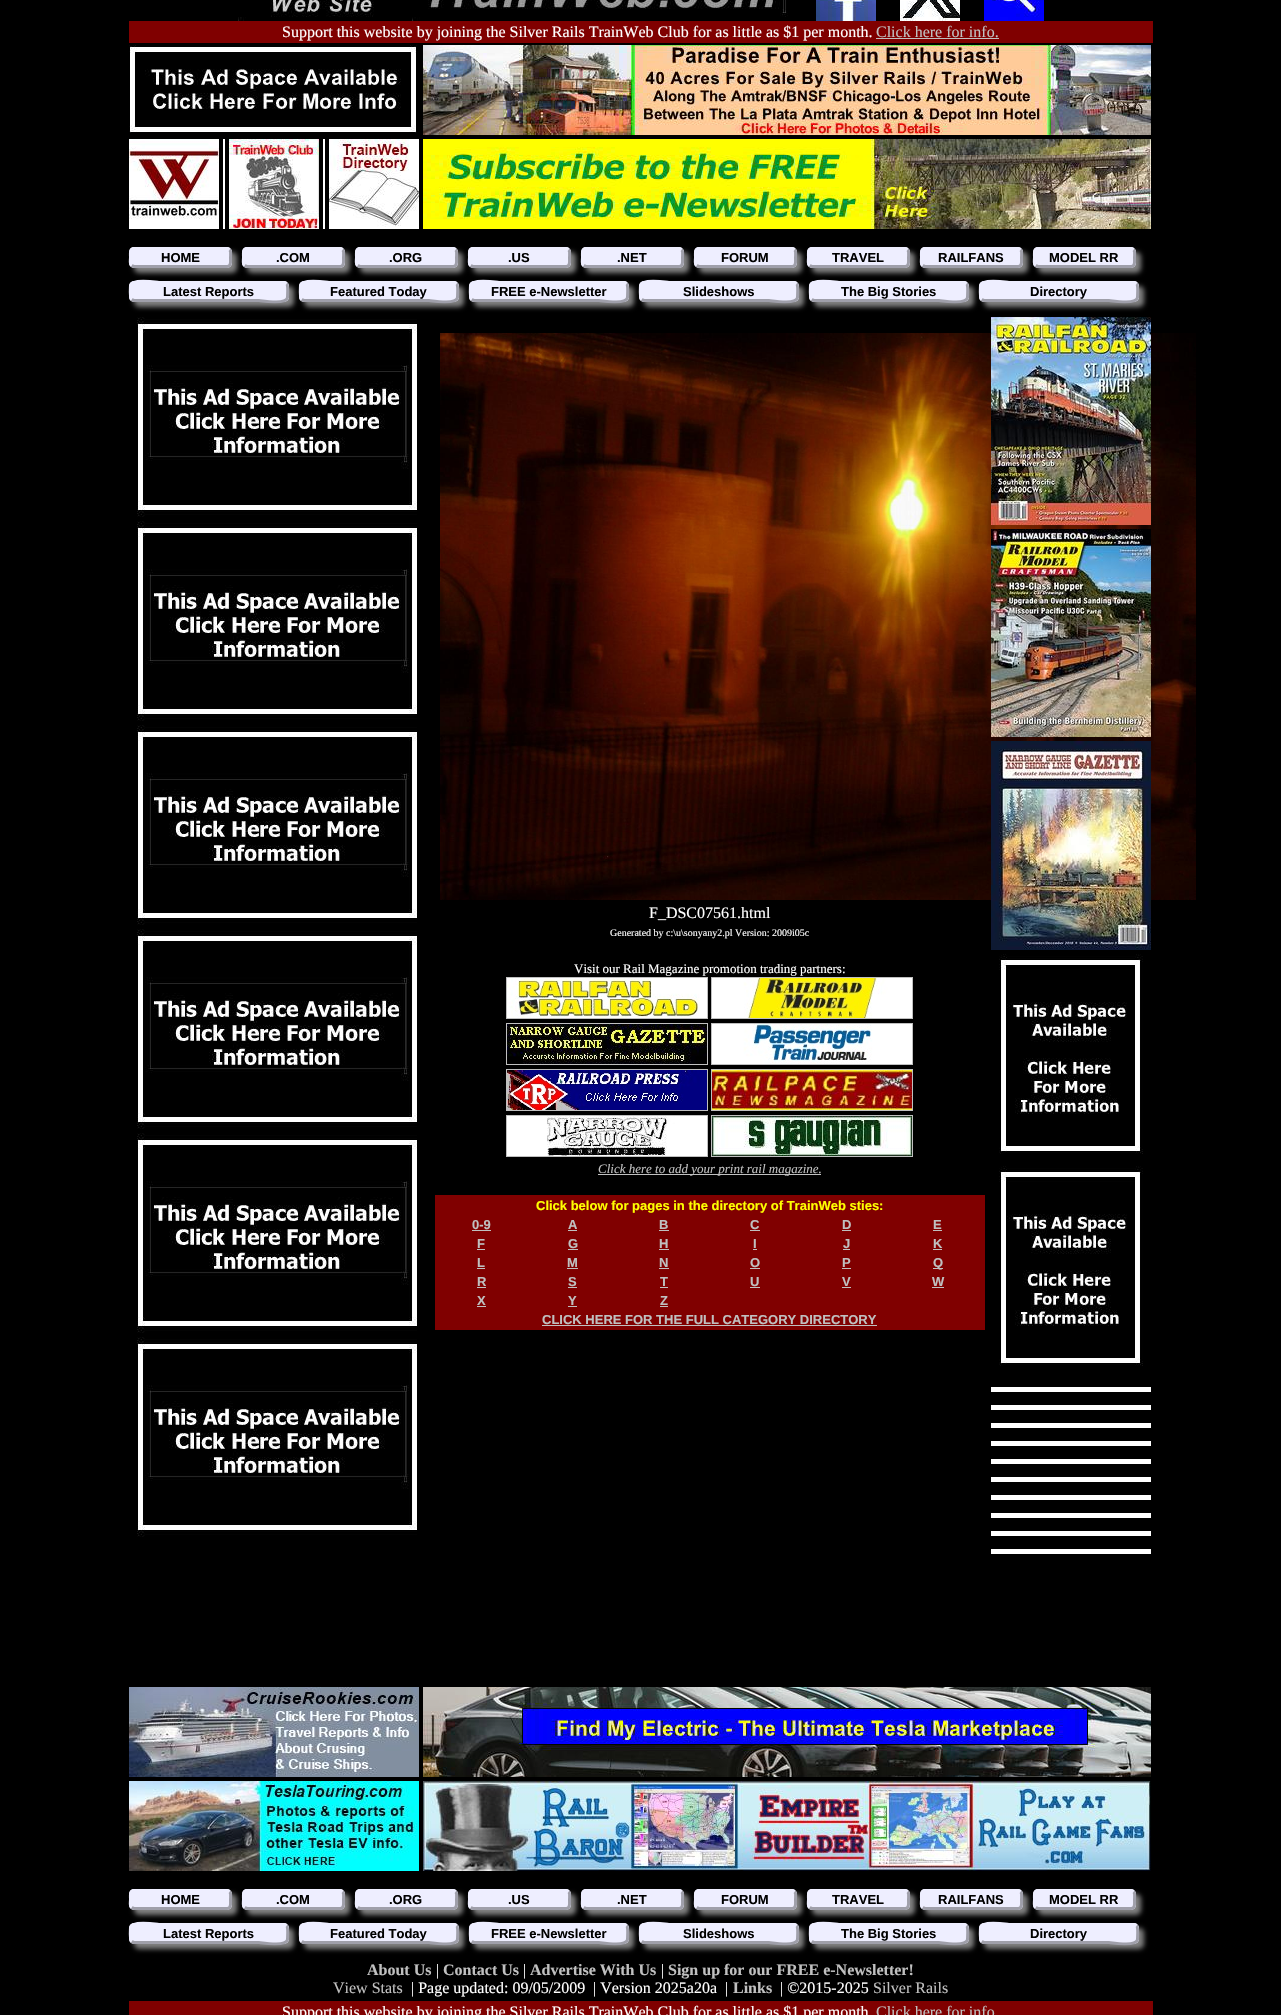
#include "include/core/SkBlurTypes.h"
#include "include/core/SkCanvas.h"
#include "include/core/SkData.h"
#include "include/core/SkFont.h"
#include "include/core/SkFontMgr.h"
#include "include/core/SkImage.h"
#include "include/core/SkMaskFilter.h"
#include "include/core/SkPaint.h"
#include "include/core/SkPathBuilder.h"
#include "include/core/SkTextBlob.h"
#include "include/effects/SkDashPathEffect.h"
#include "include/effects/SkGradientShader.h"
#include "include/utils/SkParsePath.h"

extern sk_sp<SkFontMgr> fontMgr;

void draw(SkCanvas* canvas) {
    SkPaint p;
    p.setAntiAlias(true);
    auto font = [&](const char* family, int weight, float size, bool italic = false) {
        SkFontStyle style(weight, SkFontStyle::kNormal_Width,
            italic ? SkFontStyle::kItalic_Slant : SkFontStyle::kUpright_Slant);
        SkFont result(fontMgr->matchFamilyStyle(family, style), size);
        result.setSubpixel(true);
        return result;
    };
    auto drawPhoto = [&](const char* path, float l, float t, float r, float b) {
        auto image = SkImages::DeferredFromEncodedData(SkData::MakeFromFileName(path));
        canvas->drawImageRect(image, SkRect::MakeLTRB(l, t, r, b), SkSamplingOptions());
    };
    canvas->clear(0xFF000000);
    drawPhoto("media/1.png", 238, 0, 374, 21);
    drawPhoto("media/2.png", 412, 0, 788, 21);
    drawPhoto("media/3.png", 816, 0, 876, 21);
    drawPhoto("media/4.png", 900, 0, 960, 21);
    drawPhoto("media/5.png", 984, 0, 1044, 21);
    p.setColor(0xFF800000);
    canvas->drawRect(SkRect::MakeLTRB(129, 21, 1153, 43), p);
    auto font1 = font("Liberation Serif", 400, 16);
    p.setColor(0xFFFFFFFF);
    canvas->drawString("Support this website by joining the Silver Rails TrainWeb Club for as little as $1 per month.", 282, 37, font1, p);
    p.setColor(0xFFC0C0C0);
    canvas->drawString("Click here for info.", 876, 37, font1, p);
    canvas->drawRect(SkRect::MakeLTRB(876, 38, 999, 39), p);
    drawPhoto("media/6.png", 129, 45, 417, 133);
    drawPhoto("media/7.png", 423, 45, 1151, 135);
    drawPhoto("media/8.png", 129, 139, 219, 229);
    p.setColor(0xFFFFFFFF);
    canvas->drawRect(SkRect::MakeLTRB(223, 139, 225, 229), p);
    drawPhoto("media/9.png", 229, 139, 319, 229);
    canvas->drawRect(SkRect::MakeLTRB(323, 139, 325, 229), p);
    drawPhoto("media/10.png", 329, 139, 419, 229);
    drawPhoto("media/11.png", 423, 139, 1151, 229);
    p.setColor(0xFF808080);
    p.setMaskFilter(SkMaskFilter::MakeBlur(kNormal_SkBlurStyle, 2.5f));
    canvas->drawRoundRect(SkRect::MakeLTRB(134, 252, 237, 273), 5, 5, p);
    p.setMaskFilter(nullptr);
    p.setColor(0xFFEEEEFF);
    canvas->drawRoundRect(SkRect::MakeLTRB(129, 247, 232, 268), 5, 5, p);
    p.setStyle(SkPaint::kStroke_Style);
    p.setStrokeWidth(3);
    p.setColor(0xFF9F9FAA);
    canvas->drawPath(SkPathBuilder().moveTo(229.5f, 249.5f).cubicTo(231.5f, 251.5f, 230.5f, 255, 230.5f, 257.5f).cubicTo(230.5f, 260.5f, 231.5f, 266.5f, 227, 266.5f).lineTo(134, 266.5f).lineTo(131.5f, 265.5f).detach(), p);
    p.setColor(0xFFEEEEFF);
    canvas->drawPath(SkPathBuilder().moveTo(131.5f, 265.5f).cubicTo(129.5f, 263.5f, 130.5f, 260, 130.5f, 257.5f).cubicTo(130.5f, 254.5f, 129.5f, 248.5f, 134, 248.5f).lineTo(227, 248.5f).lineTo(229.5f, 249.5f).detach(), p);
    auto font2 = font("Liberation Sans", 700, 13);
    p.setStyle(SkPaint::kFill_Style);
    p.setColor(0xFF000000);
    canvas->drawString("HOME", 161, 262, font2, p);
    p.setColor(0xFF808080);
    p.setMaskFilter(SkMaskFilter::MakeBlur(kNormal_SkBlurStyle, 2.5f));
    canvas->drawRoundRect(SkRect::MakeLTRB(247, 252, 350, 273), 5, 5, p);
    p.setMaskFilter(nullptr);
    p.setColor(0xFFEEEEFF);
    canvas->drawRoundRect(SkRect::MakeLTRB(242, 247, 345, 268), 5, 5, p);
    p.setStyle(SkPaint::kStroke_Style);
    p.setColor(0xFF9F9FAA);
    canvas->drawPath(SkPathBuilder().moveTo(342.5f, 249.5f).cubicTo(344.5f, 251.5f, 343.5f, 255, 343.5f, 257.5f).cubicTo(343.5f, 260.5f, 344.5f, 266.5f, 340, 266.5f).lineTo(247, 266.5f).lineTo(244.5f, 265.5f).detach(), p);
    p.setColor(0xFFEEEEFF);
    canvas->drawPath(SkPathBuilder().moveTo(244.5f, 265.5f).cubicTo(242.5f, 263.5f, 243.5f, 260, 243.5f, 257.5f).cubicTo(243.5f, 254.5f, 242.5f, 248.5f, 247, 248.5f).lineTo(340, 248.5f).lineTo(342.5f, 249.5f).detach(), p);
    p.setStyle(SkPaint::kFill_Style);
    p.setColor(0xFF000000);
    canvas->drawString(".COM", 276, 262, font2, p);
    p.setColor(0xFF808080);
    p.setMaskFilter(SkMaskFilter::MakeBlur(kNormal_SkBlurStyle, 2.5f));
    canvas->drawRoundRect(SkRect::MakeLTRB(360, 252, 463, 273), 5, 5, p);
    p.setMaskFilter(nullptr);
    p.setColor(0xFFEEEEFF);
    canvas->drawRoundRect(SkRect::MakeLTRB(355, 247, 458, 268), 5, 5, p);
    p.setStyle(SkPaint::kStroke_Style);
    p.setColor(0xFF9F9FAA);
    canvas->drawPath(SkPathBuilder().moveTo(455.5f, 249.5f).cubicTo(457.5f, 251.5f, 456.5f, 255, 456.5f, 257.5f).cubicTo(456.5f, 260.5f, 457.5f, 266.5f, 453, 266.5f).lineTo(360, 266.5f).lineTo(357.5f, 265.5f).detach(), p);
    p.setColor(0xFFEEEEFF);
    canvas->drawPath(SkPathBuilder().moveTo(357.5f, 265.5f).cubicTo(355.5f, 263.5f, 356.5f, 260, 356.5f, 257.5f).cubicTo(356.5f, 254.5f, 355.5f, 248.5f, 360, 248.5f).lineTo(453, 248.5f).lineTo(455.5f, 249.5f).detach(), p);
    p.setStyle(SkPaint::kFill_Style);
    p.setColor(0xFF000000);
    canvas->drawString(".ORG", 389, 262, font2, p);
    p.setColor(0xFF808080);
    p.setMaskFilter(SkMaskFilter::MakeBlur(kNormal_SkBlurStyle, 2.5f));
    canvas->drawRoundRect(SkRect::MakeLTRB(473, 252, 576, 273), 5, 5, p);
    p.setMaskFilter(nullptr);
    p.setColor(0xFFEEEEFF);
    canvas->drawRoundRect(SkRect::MakeLTRB(468, 247, 571, 268), 5, 5, p);
    p.setStyle(SkPaint::kStroke_Style);
    p.setColor(0xFF9F9FAA);
    canvas->drawPath(SkPathBuilder().moveTo(568.5f, 249.5f).cubicTo(570.5f, 251.5f, 569.5f, 255, 569.5f, 257.5f).cubicTo(569.5f, 260.5f, 570.5f, 266.5f, 566, 266.5f).lineTo(473, 266.5f).lineTo(470.5f, 265.5f).detach(), p);
    p.setColor(0xFFEEEEFF);
    canvas->drawPath(SkPathBuilder().moveTo(470.5f, 265.5f).cubicTo(468.5f, 263.5f, 469.5f, 260, 469.5f, 257.5f).cubicTo(469.5f, 254.5f, 468.5f, 248.5f, 473, 248.5f).lineTo(566, 248.5f).lineTo(568.5f, 249.5f).detach(), p);
    p.setStyle(SkPaint::kFill_Style);
    p.setColor(0xFF000000);
    canvas->drawString(".US", 508, 262, font2, p);
    p.setColor(0xFF808080);
    p.setMaskFilter(SkMaskFilter::MakeBlur(kNormal_SkBlurStyle, 2.5f));
    canvas->drawRoundRect(SkRect::MakeLTRB(586, 252, 689, 273), 5, 5, p);
    p.setMaskFilter(nullptr);
    p.setColor(0xFFEEEEFF);
    canvas->drawRoundRect(SkRect::MakeLTRB(581, 247, 684, 268), 5, 5, p);
    p.setStyle(SkPaint::kStroke_Style);
    p.setColor(0xFF9F9FAA);
    canvas->drawPath(SkPathBuilder().moveTo(681.5f, 249.5f).cubicTo(683.5f, 251.5f, 682.5f, 255, 682.5f, 257.5f).cubicTo(682.5f, 260.5f, 683.5f, 266.5f, 679, 266.5f).lineTo(586, 266.5f).lineTo(583.5f, 265.5f).detach(), p);
    p.setColor(0xFFEEEEFF);
    canvas->drawPath(SkPathBuilder().moveTo(583.5f, 265.5f).cubicTo(581.5f, 263.5f, 582.5f, 260, 582.5f, 257.5f).cubicTo(582.5f, 254.5f, 581.5f, 248.5f, 586, 248.5f).lineTo(679, 248.5f).lineTo(681.5f, 249.5f).detach(), p);
    p.setStyle(SkPaint::kFill_Style);
    p.setColor(0xFF000000);
    canvas->drawString(".NET", 617, 262, font2, p);
    p.setColor(0xFF808080);
    p.setMaskFilter(SkMaskFilter::MakeBlur(kNormal_SkBlurStyle, 2.5f));
    canvas->drawRoundRect(SkRect::MakeLTRB(699, 252, 802, 273), 5, 5, p);
    p.setMaskFilter(nullptr);
    p.setColor(0xFFEEEEFF);
    canvas->drawRoundRect(SkRect::MakeLTRB(694, 247, 797, 268), 5, 5, p);
    p.setStyle(SkPaint::kStroke_Style);
    p.setColor(0xFF9F9FAA);
    canvas->drawPath(SkPathBuilder().moveTo(794.5f, 249.5f).cubicTo(796.5f, 251.5f, 795.5f, 255, 795.5f, 257.5f).cubicTo(795.5f, 260.5f, 796.5f, 266.5f, 792, 266.5f).lineTo(699, 266.5f).lineTo(696.5f, 265.5f).detach(), p);
    p.setColor(0xFFEEEEFF);
    canvas->drawPath(SkPathBuilder().moveTo(696.5f, 265.5f).cubicTo(694.5f, 263.5f, 695.5f, 260, 695.5f, 257.5f).cubicTo(695.5f, 254.5f, 694.5f, 248.5f, 699, 248.5f).lineTo(792, 248.5f).lineTo(794.5f, 249.5f).detach(), p);
    p.setStyle(SkPaint::kFill_Style);
    p.setColor(0xFF000000);
    canvas->drawString("FORUM", 721, 262, font2, p);
    p.setColor(0xFF808080);
    p.setMaskFilter(SkMaskFilter::MakeBlur(kNormal_SkBlurStyle, 2.5f));
    canvas->drawRoundRect(SkRect::MakeLTRB(812, 252, 915, 273), 5, 5, p);
    p.setMaskFilter(nullptr);
    p.setColor(0xFFEEEEFF);
    canvas->drawRoundRect(SkRect::MakeLTRB(807, 247, 910, 268), 5, 5, p);
    p.setStyle(SkPaint::kStroke_Style);
    p.setColor(0xFF9F9FAA);
    canvas->drawPath(SkPathBuilder().moveTo(907.5f, 249.5f).cubicTo(909.5f, 251.5f, 908.5f, 255, 908.5f, 257.5f).cubicTo(908.5f, 260.5f, 909.5f, 266.5f, 905, 266.5f).lineTo(812, 266.5f).lineTo(809.5f, 265.5f).detach(), p);
    p.setColor(0xFFEEEEFF);
    canvas->drawPath(SkPathBuilder().moveTo(809.5f, 265.5f).cubicTo(807.5f, 263.5f, 808.5f, 260, 808.5f, 257.5f).cubicTo(808.5f, 254.5f, 807.5f, 248.5f, 812, 248.5f).lineTo(905, 248.5f).lineTo(907.5f, 249.5f).detach(), p);
    p.setStyle(SkPaint::kFill_Style);
    p.setColor(0xFF000000);
    canvas->drawString("TRAVEL", 832, 262, font2, p);
    p.setColor(0xFF808080);
    p.setMaskFilter(SkMaskFilter::MakeBlur(kNormal_SkBlurStyle, 2.5f));
    canvas->drawRoundRect(SkRect::MakeLTRB(925, 252, 1028, 273), 5, 5, p);
    p.setMaskFilter(nullptr);
    p.setColor(0xFFEEEEFF);
    canvas->drawRoundRect(SkRect::MakeLTRB(920, 247, 1023, 268), 5, 5, p);
    p.setStyle(SkPaint::kStroke_Style);
    p.setColor(0xFF9F9FAA);
    canvas->drawPath(SkPathBuilder().moveTo(1020.5f, 249.5f).cubicTo(1022.5f, 251.5f, 1021.5f, 255, 1021.5f, 257.5f).cubicTo(1021.5f, 260.5f, 1022.5f, 266.5f, 1018, 266.5f).lineTo(925, 266.5f).lineTo(922.5f, 265.5f).detach(), p);
    p.setColor(0xFFEEEEFF);
    canvas->drawPath(SkPathBuilder().moveTo(922.5f, 265.5f).cubicTo(920.5f, 263.5f, 921.5f, 260, 921.5f, 257.5f).cubicTo(921.5f, 254.5f, 920.5f, 248.5f, 925, 248.5f).lineTo(1018, 248.5f).lineTo(1020.5f, 249.5f).detach(), p);
    p.setStyle(SkPaint::kFill_Style);
    p.setColor(0xFF000000);
    canvas->drawString("RAILFANS", 938, 262, font2, p);
    p.setColor(0xFF808080);
    p.setMaskFilter(SkMaskFilter::MakeBlur(kNormal_SkBlurStyle, 2.5f));
    canvas->drawRoundRect(SkRect::MakeLTRB(1038, 252, 1141, 273), 5, 5, p);
    p.setMaskFilter(nullptr);
    p.setColor(0xFFEEEEFF);
    canvas->drawRoundRect(SkRect::MakeLTRB(1033, 247, 1136, 268), 5, 5, p);
    p.setStyle(SkPaint::kStroke_Style);
    p.setColor(0xFF9F9FAA);
    canvas->drawPath(SkPathBuilder().moveTo(1133.5f, 249.5f).cubicTo(1135.5f, 251.5f, 1134.5f, 255, 1134.5f, 257.5f).cubicTo(1134.5f, 260.5f, 1135.5f, 266.5f, 1131, 266.5f).lineTo(1038, 266.5f).lineTo(1035.5f, 265.5f).detach(), p);
    p.setColor(0xFFEEEEFF);
    canvas->drawPath(SkPathBuilder().moveTo(1035.5f, 265.5f).cubicTo(1033.5f, 263.5f, 1034.5f, 260, 1034.5f, 257.5f).cubicTo(1034.5f, 254.5f, 1033.5f, 248.5f, 1038, 248.5f).lineTo(1131, 248.5f).lineTo(1133.5f, 249.5f).detach(), p);
    p.setStyle(SkPaint::kFill_Style);
    p.setColor(0xFF000000);
    canvas->drawString("MODEL RR", 1049, 262, font2, p);
    p.setColor(0xFF808080);
    p.setMaskFilter(SkMaskFilter::MakeBlur(kNormal_SkBlurStyle, 2.5f));
    canvas->drawRoundRect(SkRect::MakeLTRB(134, 286, 294, 307), 5, 5, p);
    p.setMaskFilter(nullptr);
    p.setColor(0xFFEEEEFF);
    canvas->drawRoundRect(SkRect::MakeLTRB(129, 281, 289, 302), 5, 5, p);
    p.setStyle(SkPaint::kStroke_Style);
    p.setColor(0xFF9F9FAA);
    canvas->drawPath(SkPathBuilder().moveTo(286.5f, 283.5f).cubicTo(288.5f, 285.5f, 287.5f, 295, 287.5f, 297.5f).cubicTo(286.5f, 305, 260, 300.5f, 259, 300.5f).lineTo(134, 300.5f).lineTo(131.5f, 299.5f).detach(), p);
    p.setColor(0xFFEEEEFF);
    canvas->drawPath(SkPathBuilder().moveTo(131.5f, 299.5f).cubicTo(129.5f, 297.5f, 130.5f, 288, 130.5f, 285.5f).cubicTo(131.5f, 278, 158, 282.5f, 159, 282.5f).lineTo(284, 282.5f).lineTo(286.5f, 283.5f).detach(), p);
    p.setStyle(SkPaint::kFill_Style);
    p.setColor(0xFF000000);
    canvas->drawString("Latest Reports", 163, 296, font2, p);
    p.setColor(0xFF808080);
    p.setMaskFilter(SkMaskFilter::MakeBlur(kNormal_SkBlurStyle, 2.5f));
    canvas->drawRoundRect(SkRect::MakeLTRB(304, 286, 464, 307), 5, 5, p);
    p.setMaskFilter(nullptr);
    p.setColor(0xFFEEEEFF);
    canvas->drawRoundRect(SkRect::MakeLTRB(299, 281, 459, 302), 5, 5, p);
    p.setStyle(SkPaint::kStroke_Style);
    p.setColor(0xFF9F9FAA);
    canvas->drawPath(SkPathBuilder().moveTo(456.5f, 283.5f).cubicTo(458.5f, 285.5f, 457.5f, 295, 457.5f, 297.5f).cubicTo(456.5f, 305, 430, 300.5f, 429, 300.5f).lineTo(304, 300.5f).lineTo(301.5f, 299.5f).detach(), p);
    p.setColor(0xFFEEEEFF);
    canvas->drawPath(SkPathBuilder().moveTo(301.5f, 299.5f).cubicTo(299.5f, 297.5f, 300.5f, 288, 300.5f, 285.5f).cubicTo(301.5f, 278, 328, 282.5f, 329, 282.5f).lineTo(454, 282.5f).lineTo(456.5f, 283.5f).detach(), p);
    p.setStyle(SkPaint::kFill_Style);
    p.setColor(0xFF000000);
    canvas->drawString("Featured Today", 330, 296, font2, p);
    p.setColor(0xFF808080);
    p.setMaskFilter(SkMaskFilter::MakeBlur(kNormal_SkBlurStyle, 2.5f));
    canvas->drawRoundRect(SkRect::MakeLTRB(474, 286, 634, 307), 5, 5, p);
    p.setMaskFilter(nullptr);
    p.setColor(0xFFEEEEFF);
    canvas->drawRoundRect(SkRect::MakeLTRB(469, 281, 629, 302), 5, 5, p);
    p.setStyle(SkPaint::kStroke_Style);
    p.setColor(0xFF9F9FAA);
    canvas->drawPath(SkPathBuilder().moveTo(626.5f, 283.5f).cubicTo(628.5f, 285.5f, 627.5f, 295, 627.5f, 297.5f).cubicTo(626.5f, 305, 600, 300.5f, 599, 300.5f).lineTo(474, 300.5f).lineTo(471.5f, 299.5f).detach(), p);
    p.setColor(0xFFEEEEFF);
    canvas->drawPath(SkPathBuilder().moveTo(471.5f, 299.5f).cubicTo(469.5f, 297.5f, 470.5f, 288, 470.5f, 285.5f).cubicTo(471.5f, 278, 498, 282.5f, 499, 282.5f).lineTo(624, 282.5f).lineTo(626.5f, 283.5f).detach(), p);
    p.setStyle(SkPaint::kFill_Style);
    p.setColor(0xFF000000);
    canvas->drawString("FREE e-Newsletter", 491, 296, font2, p);
    p.setColor(0xFF808080);
    p.setMaskFilter(SkMaskFilter::MakeBlur(kNormal_SkBlurStyle, 2.5f));
    canvas->drawRoundRect(SkRect::MakeLTRB(644, 286, 804, 307), 5, 5, p);
    p.setMaskFilter(nullptr);
    p.setColor(0xFFEEEEFF);
    canvas->drawRoundRect(SkRect::MakeLTRB(639, 281, 799, 302), 5, 5, p);
    p.setStyle(SkPaint::kStroke_Style);
    p.setColor(0xFF9F9FAA);
    canvas->drawPath(SkPathBuilder().moveTo(796.5f, 283.5f).cubicTo(798.5f, 285.5f, 797.5f, 295, 797.5f, 297.5f).cubicTo(796.5f, 305, 770, 300.5f, 769, 300.5f).lineTo(644, 300.5f).lineTo(641.5f, 299.5f).detach(), p);
    p.setColor(0xFFEEEEFF);
    canvas->drawPath(SkPathBuilder().moveTo(641.5f, 299.5f).cubicTo(639.5f, 297.5f, 640.5f, 288, 640.5f, 285.5f).cubicTo(641.5f, 278, 668, 282.5f, 669, 282.5f).lineTo(794, 282.5f).lineTo(796.5f, 283.5f).detach(), p);
    p.setStyle(SkPaint::kFill_Style);
    p.setColor(0xFF000000);
    canvas->drawString("Slideshows", 683, 296, font2, p);
    p.setColor(0xFF808080);
    p.setMaskFilter(SkMaskFilter::MakeBlur(kNormal_SkBlurStyle, 2.5f));
    canvas->drawRoundRect(SkRect::MakeLTRB(814, 286, 974, 307), 5, 5, p);
    p.setMaskFilter(nullptr);
    p.setColor(0xFFEEEEFF);
    canvas->drawRoundRect(SkRect::MakeLTRB(809, 281, 969, 302), 5, 5, p);
    p.setStyle(SkPaint::kStroke_Style);
    p.setColor(0xFF9F9FAA);
    canvas->drawPath(SkPathBuilder().moveTo(966.5f, 283.5f).cubicTo(968.5f, 285.5f, 967.5f, 295, 967.5f, 297.5f).cubicTo(966.5f, 305, 940, 300.5f, 939, 300.5f).lineTo(814, 300.5f).lineTo(811.5f, 299.5f).detach(), p);
    p.setColor(0xFFEEEEFF);
    canvas->drawPath(SkPathBuilder().moveTo(811.5f, 299.5f).cubicTo(809.5f, 297.5f, 810.5f, 288, 810.5f, 285.5f).cubicTo(811.5f, 278, 838, 282.5f, 839, 282.5f).lineTo(964, 282.5f).lineTo(966.5f, 283.5f).detach(), p);
    p.setStyle(SkPaint::kFill_Style);
    p.setColor(0xFF000000);
    canvas->drawString("The Big Stories", 841, 296, font2, p);
    p.setColor(0xFF808080);
    p.setMaskFilter(SkMaskFilter::MakeBlur(kNormal_SkBlurStyle, 2.5f));
    canvas->drawRoundRect(SkRect::MakeLTRB(984, 286, 1144, 307), 5, 5, p);
    p.setMaskFilter(nullptr);
    p.setColor(0xFFEEEEFF);
    canvas->drawRoundRect(SkRect::MakeLTRB(979, 281, 1139, 302), 5, 5, p);
    p.setStyle(SkPaint::kStroke_Style);
    p.setColor(0xFF9F9FAA);
    canvas->drawPath(SkPathBuilder().moveTo(1136.5f, 283.5f).cubicTo(1138.5f, 285.5f, 1137.5f, 295, 1137.5f, 297.5f).cubicTo(1136.5f, 305, 1110, 300.5f, 1109, 300.5f).lineTo(984, 300.5f).lineTo(981.5f, 299.5f).detach(), p);
    p.setColor(0xFFEEEEFF);
    canvas->drawPath(SkPathBuilder().moveTo(981.5f, 299.5f).cubicTo(979.5f, 297.5f, 980.5f, 288, 980.5f, 285.5f).cubicTo(981.5f, 278, 1008, 282.5f, 1009, 282.5f).lineTo(1134, 282.5f).lineTo(1136.5f, 283.5f).detach(), p);
    p.setStyle(SkPaint::kFill_Style);
    p.setColor(0xFF000000);
    canvas->drawString("Directory", 1030, 296, font2, p);
    drawPhoto("media/12.png", 137, 317, 417, 517);
    drawPhoto("media/12.png", 137, 521, 417, 721);
    drawPhoto("media/12.png", 137, 725, 417, 925);
    drawPhoto("media/12.png", 137, 929, 417, 1129);
    drawPhoto("media/12.png", 137, 1133, 417, 1333);
    drawPhoto("media/12.png", 137, 1337, 417, 1537);
    drawPhoto("media/13.png", 440, 333, 1196, 900);
    p.setColor(0xFFFFFFFF);
    canvas->drawString("F_DSC07561.html", 649, 918, font1, p);
    auto font3 = font("Liberation Serif", 400, 10);
    canvas->drawString("Generated by c:\\u\\sonyany2.pl Version: 2009i05c", 610, 936, font3, p);
    auto font4 = font("Liberation Serif", 400, 13);
    canvas->drawString("Visit our Rail Magazine promotion trading partners:", 574, 973, font4, p);
    p.setStyle(SkPaint::kStroke_Style);
    p.setStrokeWidth(1);
    p.setColor(0xFFC0C0C0);
    canvas->drawRect(SkRect::MakeLTRB(506.5f, 977.5f, 707.5f, 1018.5f), p);
    canvas->drawRect(SkRect::MakeLTRB(711.5f, 977.5f, 912.5f, 1018.5f), p);
    drawPhoto("media/14.png", 507, 978, 707, 1018);
    drawPhoto("media/15.png", 712, 978, 912, 1018);
    canvas->drawRect(SkRect::MakeLTRB(506.5f, 1023.5f, 707.5f, 1064.5f), p);
    canvas->drawRect(SkRect::MakeLTRB(711.5f, 1023.5f, 912.5f, 1064.5f), p);
    drawPhoto("media/16.png", 507, 1024, 707, 1064);
    drawPhoto("media/17.png", 712, 1024, 912, 1064);
    canvas->drawRect(SkRect::MakeLTRB(506.5f, 1069.5f, 707.5f, 1110.5f), p);
    canvas->drawRect(SkRect::MakeLTRB(711.5f, 1069.5f, 912.5f, 1110.5f), p);
    drawPhoto("media/18.png", 507, 1070, 707, 1110);
    drawPhoto("media/19.png", 712, 1070, 912, 1110);
    canvas->drawRect(SkRect::MakeLTRB(506.5f, 1115.5f, 707.5f, 1156.5f), p);
    canvas->drawRect(SkRect::MakeLTRB(711.5f, 1115.5f, 912.5f, 1156.5f), p);
    drawPhoto("media/20.png", 507, 1116, 707, 1156);
    drawPhoto("media/21.png", 712, 1116, 912, 1156);
    p.setStyle(SkPaint::kFill_Style);
    canvas->drawRect(SkRect::MakeLTRB(598, 1174, 821, 1175), p);
    auto font5 = font("Liberation Serif", 400, 13, true);
    canvas->drawString("Click here to add your print rail magazine.", 598, 1173, font5, p);
    p.setColor(0xFF800000);
    canvas->drawRect(SkRect::MakeLTRB(435, 1195, 985, 1330), p);
    p.setColor(0xFFFFFF00);
    canvas->drawString("Click below for pages in the directory of TrainWeb sties:", 536, 1210, font2, p);
    p.setColor(0xFFC0C0C0);
    canvas->drawString("0-9", 472, 1229, font2, p);
    canvas->drawRect(SkRect::MakeLTRB(472, 1230, 491, 1231), p);
    canvas->drawString("A", 568, 1229, font2, p);
    canvas->drawRect(SkRect::MakeLTRB(568, 1230, 577, 1231), p);
    canvas->drawString("B", 659, 1229, font2, p);
    canvas->drawRect(SkRect::MakeLTRB(659, 1230, 669, 1231), p);
    canvas->drawString("C", 750, 1229, font2, p);
    canvas->drawRect(SkRect::MakeLTRB(750, 1230, 760, 1231), p);
    canvas->drawString("D", 842, 1229, font2, p);
    canvas->drawRect(SkRect::MakeLTRB(842, 1230, 851, 1231), p);
    canvas->drawString("E", 933, 1229, font2, p);
    canvas->drawRect(SkRect::MakeLTRB(933, 1230, 942, 1231), p);
    canvas->drawString("F", 477, 1248, font2, p);
    canvas->drawRect(SkRect::MakeLTRB(477, 1249, 485, 1250), p);
    canvas->drawString("G", 568, 1248, font2, p);
    canvas->drawRect(SkRect::MakeLTRB(568, 1249, 578, 1250), p);
    canvas->drawString("H", 659, 1248, font2, p);
    canvas->drawRect(SkRect::MakeLTRB(659, 1249, 669, 1250), p);
    canvas->drawString("I", 753, 1248, font2, p);
    canvas->drawRect(SkRect::MakeLTRB(753, 1249, 757, 1250), p);
    canvas->drawString("J", 843, 1248, font2, p);
    canvas->drawRect(SkRect::MakeLTRB(843, 1249, 850, 1250), p);
    canvas->drawString("K", 933, 1248, font2, p);
    canvas->drawRect(SkRect::MakeLTRB(933, 1249, 942, 1250), p);
    canvas->drawString("L", 477, 1267, font2, p);
    canvas->drawRect(SkRect::MakeLTRB(477, 1268, 485, 1269), p);
    canvas->drawString("M", 567, 1267, font2, p);
    canvas->drawRect(SkRect::MakeLTRB(567, 1268, 578, 1269), p);
    canvas->drawString("N", 659, 1267, font2, p);
    canvas->drawRect(SkRect::MakeLTRB(659, 1268, 669, 1269), p);
    canvas->drawString("O", 750, 1267, font2, p);
    canvas->drawRect(SkRect::MakeLTRB(750, 1268, 760, 1269), p);
    canvas->drawString("P", 842, 1267, font2, p);
    canvas->drawRect(SkRect::MakeLTRB(842, 1268, 851, 1269), p);
    canvas->drawRect(SkRect::MakeLTRB(933, 1268, 943, 1269), p);
    canvas->drawString("Q", 933, 1267, font2, p);
    canvas->drawString("R", 477, 1286, font2, p);
    canvas->drawRect(SkRect::MakeLTRB(477, 1287, 486, 1288), p);
    canvas->drawString("S", 568, 1286, font2, p);
    canvas->drawRect(SkRect::MakeLTRB(568, 1287, 577, 1288), p);
    canvas->drawString("T", 660, 1286, font2, p);
    canvas->drawRect(SkRect::MakeLTRB(660, 1287, 668, 1288), p);
    canvas->drawString("U", 750, 1286, font2, p);
    canvas->drawRect(SkRect::MakeLTRB(750, 1287, 760, 1288), p);
    canvas->drawString("V", 842, 1286, font2, p);
    canvas->drawRect(SkRect::MakeLTRB(842, 1287, 851, 1288), p);
    canvas->drawString("W", 932, 1286, font2, p);
    canvas->drawRect(SkRect::MakeLTRB(932, 1287, 944, 1288), p);
    canvas->drawString("X", 477, 1305, font2, p);
    canvas->drawRect(SkRect::MakeLTRB(477, 1306, 486, 1307), p);
    canvas->drawString("Y", 568, 1305, font2, p);
    canvas->drawRect(SkRect::MakeLTRB(568, 1306, 577, 1307), p);
    canvas->drawString("Z", 660, 1305, font2, p);
    canvas->drawRect(SkRect::MakeLTRB(660, 1306, 668, 1307), p);
    canvas->drawString("CLICK HERE FOR THE FULL CATEGORY DIRECTORY", 542, 1324, font2, p);
    canvas->drawRect(SkRect::MakeLTRB(542, 1325, 877, 1326), p);
    drawPhoto("media/22.png", 991, 317, 1151, 525);
    drawPhoto("media/23.png", 991, 529, 1151, 737);
    drawPhoto("media/24.png", 991, 741, 1151, 950);
    drawPhoto("media/25.png", 999, 954, 1143, 1154);
    drawPhoto("media/25.png", 999, 1166, 1143, 1366);
    {
        const struct { float l, t, r, b; SkColor color; } items[] = {
            {991, 1387, 1151, 1392, 0xFFFFFFFF},
            {991, 1405, 1151, 1410, 0xFFFFFFFF},
            {991, 1423, 1151, 1428, 0xFFFFFFFF},
            {991, 1441, 1151, 1446, 0xFFFFFFFF},
            {991, 1459, 1151, 1464, 0xFFFFFFFF},
            {991, 1477, 1151, 1482, 0xFFFFFFFF},
            {991, 1495, 1151, 1500, 0xFFFFFFFF},
            {991, 1513, 1151, 1518, 0xFFFFFFFF},
            {991, 1531, 1151, 1536, 0xFFFFFFFF},
            {991, 1549, 1151, 1554, 0xFFFFFFFF},
        };
        for (auto [l, t, r, b, color] : items) {
            p.setColor(color);
            canvas->drawRect(SkRect::MakeLTRB(l, t, r, b), p);
        }
    }
    drawPhoto("media/26.png", 129, 1687, 419, 1777);
    drawPhoto("media/27.png", 423, 1687, 1151, 1777);
    drawPhoto("media/28.png", 129, 1781, 419, 1871);
    drawPhoto("media/29.png", 423, 1781, 1151, 1871);
    p.setColor(0xFF808080);
    p.setMaskFilter(SkMaskFilter::MakeBlur(kNormal_SkBlurStyle, 2.5f));
    canvas->drawRoundRect(SkRect::MakeLTRB(134, 1894, 237, 1915), 5, 5, p);
    p.setMaskFilter(nullptr);
    p.setColor(0xFFEEEEFF);
    canvas->drawRoundRect(SkRect::MakeLTRB(129, 1889, 232, 1910), 5, 5, p);
    p.setStyle(SkPaint::kStroke_Style);
    p.setStrokeWidth(3);
    p.setColor(0xFF9F9FAA);
    canvas->drawPath(SkPathBuilder().moveTo(229.5f, 1891.5f).cubicTo(231.5f, 1893.5f, 230.5f, 1897, 230.5f, 1899.5f).cubicTo(230.5f, 1902.5f, 231.5f, 1908.5f, 227, 1908.5f).lineTo(134, 1908.5f).lineTo(131.5f, 1907.5f).detach(), p);
    p.setColor(0xFFEEEEFF);
    canvas->drawPath(SkPathBuilder().moveTo(131.5f, 1907.5f).cubicTo(129.5f, 1905.5f, 130.5f, 1902, 130.5f, 1899.5f).cubicTo(130.5f, 1896.5f, 129.5f, 1890.5f, 134, 1890.5f).lineTo(227, 1890.5f).lineTo(229.5f, 1891.5f).detach(), p);
    p.setStyle(SkPaint::kFill_Style);
    p.setColor(0xFF000000);
    canvas->drawString("HOME", 161, 1904, font2, p);
    p.setColor(0xFF808080);
    p.setMaskFilter(SkMaskFilter::MakeBlur(kNormal_SkBlurStyle, 2.5f));
    canvas->drawRoundRect(SkRect::MakeLTRB(247, 1894, 350, 1915), 5, 5, p);
    p.setMaskFilter(nullptr);
    p.setColor(0xFFEEEEFF);
    canvas->drawRoundRect(SkRect::MakeLTRB(242, 1889, 345, 1910), 5, 5, p);
    p.setStyle(SkPaint::kStroke_Style);
    p.setColor(0xFF9F9FAA);
    canvas->drawPath(SkPathBuilder().moveTo(342.5f, 1891.5f).cubicTo(344.5f, 1893.5f, 343.5f, 1897, 343.5f, 1899.5f).cubicTo(343.5f, 1902.5f, 344.5f, 1908.5f, 340, 1908.5f).lineTo(247, 1908.5f).lineTo(244.5f, 1907.5f).detach(), p);
    p.setColor(0xFFEEEEFF);
    canvas->drawPath(SkPathBuilder().moveTo(244.5f, 1907.5f).cubicTo(242.5f, 1905.5f, 243.5f, 1902, 243.5f, 1899.5f).cubicTo(243.5f, 1896.5f, 242.5f, 1890.5f, 247, 1890.5f).lineTo(340, 1890.5f).lineTo(342.5f, 1891.5f).detach(), p);
    p.setStyle(SkPaint::kFill_Style);
    p.setColor(0xFF000000);
    canvas->drawString(".COM", 276, 1904, font2, p);
    p.setColor(0xFF808080);
    p.setMaskFilter(SkMaskFilter::MakeBlur(kNormal_SkBlurStyle, 2.5f));
    canvas->drawRoundRect(SkRect::MakeLTRB(360, 1894, 463, 1915), 5, 5, p);
    p.setMaskFilter(nullptr);
    p.setColor(0xFFEEEEFF);
    canvas->drawRoundRect(SkRect::MakeLTRB(355, 1889, 458, 1910), 5, 5, p);
    p.setStyle(SkPaint::kStroke_Style);
    p.setColor(0xFF9F9FAA);
    canvas->drawPath(SkPathBuilder().moveTo(455.5f, 1891.5f).cubicTo(457.5f, 1893.5f, 456.5f, 1897, 456.5f, 1899.5f).cubicTo(456.5f, 1902.5f, 457.5f, 1908.5f, 453, 1908.5f).lineTo(360, 1908.5f).lineTo(357.5f, 1907.5f).detach(), p);
    p.setColor(0xFFEEEEFF);
    canvas->drawPath(SkPathBuilder().moveTo(357.5f, 1907.5f).cubicTo(355.5f, 1905.5f, 356.5f, 1902, 356.5f, 1899.5f).cubicTo(356.5f, 1896.5f, 355.5f, 1890.5f, 360, 1890.5f).lineTo(453, 1890.5f).lineTo(455.5f, 1891.5f).detach(), p);
    p.setStyle(SkPaint::kFill_Style);
    p.setColor(0xFF000000);
    canvas->drawString(".ORG", 389, 1904, font2, p);
    p.setColor(0xFF808080);
    p.setMaskFilter(SkMaskFilter::MakeBlur(kNormal_SkBlurStyle, 2.5f));
    canvas->drawRoundRect(SkRect::MakeLTRB(473, 1894, 576, 1915), 5, 5, p);
    p.setMaskFilter(nullptr);
    p.setColor(0xFFEEEEFF);
    canvas->drawRoundRect(SkRect::MakeLTRB(468, 1889, 571, 1910), 5, 5, p);
    p.setStyle(SkPaint::kStroke_Style);
    p.setColor(0xFF9F9FAA);
    canvas->drawPath(SkPathBuilder().moveTo(568.5f, 1891.5f).cubicTo(570.5f, 1893.5f, 569.5f, 1897, 569.5f, 1899.5f).cubicTo(569.5f, 1902.5f, 570.5f, 1908.5f, 566, 1908.5f).lineTo(473, 1908.5f).lineTo(470.5f, 1907.5f).detach(), p);
    p.setColor(0xFFEEEEFF);
    canvas->drawPath(SkPathBuilder().moveTo(470.5f, 1907.5f).cubicTo(468.5f, 1905.5f, 469.5f, 1902, 469.5f, 1899.5f).cubicTo(469.5f, 1896.5f, 468.5f, 1890.5f, 473, 1890.5f).lineTo(566, 1890.5f).lineTo(568.5f, 1891.5f).detach(), p);
    p.setStyle(SkPaint::kFill_Style);
    p.setColor(0xFF000000);
    canvas->drawString(".US", 508, 1904, font2, p);
    p.setColor(0xFF808080);
    p.setMaskFilter(SkMaskFilter::MakeBlur(kNormal_SkBlurStyle, 2.5f));
    canvas->drawRoundRect(SkRect::MakeLTRB(586, 1894, 689, 1915), 5, 5, p);
    p.setMaskFilter(nullptr);
    p.setColor(0xFFEEEEFF);
    canvas->drawRoundRect(SkRect::MakeLTRB(581, 1889, 684, 1910), 5, 5, p);
    p.setStyle(SkPaint::kStroke_Style);
    p.setColor(0xFF9F9FAA);
    canvas->drawPath(SkPathBuilder().moveTo(681.5f, 1891.5f).cubicTo(683.5f, 1893.5f, 682.5f, 1897, 682.5f, 1899.5f).cubicTo(682.5f, 1902.5f, 683.5f, 1908.5f, 679, 1908.5f).lineTo(586, 1908.5f).lineTo(583.5f, 1907.5f).detach(), p);
    p.setColor(0xFFEEEEFF);
    canvas->drawPath(SkPathBuilder().moveTo(583.5f, 1907.5f).cubicTo(581.5f, 1905.5f, 582.5f, 1902, 582.5f, 1899.5f).cubicTo(582.5f, 1896.5f, 581.5f, 1890.5f, 586, 1890.5f).lineTo(679, 1890.5f).lineTo(681.5f, 1891.5f).detach(), p);
    p.setStyle(SkPaint::kFill_Style);
    p.setColor(0xFF000000);
    canvas->drawString(".NET", 617, 1904, font2, p);
    p.setColor(0xFF808080);
    p.setMaskFilter(SkMaskFilter::MakeBlur(kNormal_SkBlurStyle, 2.5f));
    canvas->drawRoundRect(SkRect::MakeLTRB(699, 1894, 802, 1915), 5, 5, p);
    p.setMaskFilter(nullptr);
    p.setColor(0xFFEEEEFF);
    canvas->drawRoundRect(SkRect::MakeLTRB(694, 1889, 797, 1910), 5, 5, p);
    p.setStyle(SkPaint::kStroke_Style);
    p.setColor(0xFF9F9FAA);
    canvas->drawPath(SkPathBuilder().moveTo(794.5f, 1891.5f).cubicTo(796.5f, 1893.5f, 795.5f, 1897, 795.5f, 1899.5f).cubicTo(795.5f, 1902.5f, 796.5f, 1908.5f, 792, 1908.5f).lineTo(699, 1908.5f).lineTo(696.5f, 1907.5f).detach(), p);
    p.setColor(0xFFEEEEFF);
    canvas->drawPath(SkPathBuilder().moveTo(696.5f, 1907.5f).cubicTo(694.5f, 1905.5f, 695.5f, 1902, 695.5f, 1899.5f).cubicTo(695.5f, 1896.5f, 694.5f, 1890.5f, 699, 1890.5f).lineTo(792, 1890.5f).lineTo(794.5f, 1891.5f).detach(), p);
    p.setStyle(SkPaint::kFill_Style);
    p.setColor(0xFF000000);
    canvas->drawString("FORUM", 721, 1904, font2, p);
    p.setColor(0xFF808080);
    p.setMaskFilter(SkMaskFilter::MakeBlur(kNormal_SkBlurStyle, 2.5f));
    canvas->drawRoundRect(SkRect::MakeLTRB(812, 1894, 915, 1915), 5, 5, p);
    p.setMaskFilter(nullptr);
    p.setColor(0xFFEEEEFF);
    canvas->drawRoundRect(SkRect::MakeLTRB(807, 1889, 910, 1910), 5, 5, p);
    p.setStyle(SkPaint::kStroke_Style);
    p.setColor(0xFF9F9FAA);
    canvas->drawPath(SkPathBuilder().moveTo(907.5f, 1891.5f).cubicTo(909.5f, 1893.5f, 908.5f, 1897, 908.5f, 1899.5f).cubicTo(908.5f, 1902.5f, 909.5f, 1908.5f, 905, 1908.5f).lineTo(812, 1908.5f).lineTo(809.5f, 1907.5f).detach(), p);
    p.setColor(0xFFEEEEFF);
    canvas->drawPath(SkPathBuilder().moveTo(809.5f, 1907.5f).cubicTo(807.5f, 1905.5f, 808.5f, 1902, 808.5f, 1899.5f).cubicTo(808.5f, 1896.5f, 807.5f, 1890.5f, 812, 1890.5f).lineTo(905, 1890.5f).lineTo(907.5f, 1891.5f).detach(), p);
    p.setStyle(SkPaint::kFill_Style);
    p.setColor(0xFF000000);
    canvas->drawString("TRAVEL", 832, 1904, font2, p);
    p.setColor(0xFF808080);
    p.setMaskFilter(SkMaskFilter::MakeBlur(kNormal_SkBlurStyle, 2.5f));
    canvas->drawRoundRect(SkRect::MakeLTRB(925, 1894, 1028, 1915), 5, 5, p);
    p.setMaskFilter(nullptr);
    p.setColor(0xFFEEEEFF);
    canvas->drawRoundRect(SkRect::MakeLTRB(920, 1889, 1023, 1910), 5, 5, p);
    p.setStyle(SkPaint::kStroke_Style);
    p.setColor(0xFF9F9FAA);
    canvas->drawPath(SkPathBuilder().moveTo(1020.5f, 1891.5f).cubicTo(1022.5f, 1893.5f, 1021.5f, 1897, 1021.5f, 1899.5f).cubicTo(1021.5f, 1902.5f, 1022.5f, 1908.5f, 1018, 1908.5f).lineTo(925, 1908.5f).lineTo(922.5f, 1907.5f).detach(), p);
    p.setColor(0xFFEEEEFF);
    canvas->drawPath(SkPathBuilder().moveTo(922.5f, 1907.5f).cubicTo(920.5f, 1905.5f, 921.5f, 1902, 921.5f, 1899.5f).cubicTo(921.5f, 1896.5f, 920.5f, 1890.5f, 925, 1890.5f).lineTo(1018, 1890.5f).lineTo(1020.5f, 1891.5f).detach(), p);
    p.setStyle(SkPaint::kFill_Style);
    p.setColor(0xFF000000);
    canvas->drawString("RAILFANS", 938, 1904, font2, p);
    p.setColor(0xFF808080);
    p.setMaskFilter(SkMaskFilter::MakeBlur(kNormal_SkBlurStyle, 2.5f));
    canvas->drawRoundRect(SkRect::MakeLTRB(1038, 1894, 1141, 1915), 5, 5, p);
    p.setMaskFilter(nullptr);
    p.setColor(0xFFEEEEFF);
    canvas->drawRoundRect(SkRect::MakeLTRB(1033, 1889, 1136, 1910), 5, 5, p);
    p.setStyle(SkPaint::kStroke_Style);
    p.setColor(0xFF9F9FAA);
    canvas->drawPath(SkPathBuilder().moveTo(1133.5f, 1891.5f).cubicTo(1135.5f, 1893.5f, 1134.5f, 1897, 1134.5f, 1899.5f).cubicTo(1134.5f, 1902.5f, 1135.5f, 1908.5f, 1131, 1908.5f).lineTo(1038, 1908.5f).lineTo(1035.5f, 1907.5f).detach(), p);
    p.setColor(0xFFEEEEFF);
    canvas->drawPath(SkPathBuilder().moveTo(1035.5f, 1907.5f).cubicTo(1033.5f, 1905.5f, 1034.5f, 1902, 1034.5f, 1899.5f).cubicTo(1034.5f, 1896.5f, 1033.5f, 1890.5f, 1038, 1890.5f).lineTo(1131, 1890.5f).lineTo(1133.5f, 1891.5f).detach(), p);
    p.setStyle(SkPaint::kFill_Style);
    p.setColor(0xFF000000);
    canvas->drawString("MODEL RR", 1049, 1904, font2, p);
    p.setColor(0xFF808080);
    p.setMaskFilter(SkMaskFilter::MakeBlur(kNormal_SkBlurStyle, 2.5f));
    canvas->drawRoundRect(SkRect::MakeLTRB(134, 1928, 294, 1949), 5, 5, p);
    p.setMaskFilter(nullptr);
    p.setColor(0xFFEEEEFF);
    canvas->drawRoundRect(SkRect::MakeLTRB(129, 1923, 289, 1944), 5, 5, p);
    p.setStyle(SkPaint::kStroke_Style);
    p.setColor(0xFF9F9FAA);
    canvas->drawPath(SkPathBuilder().moveTo(286.5f, 1925.5f).cubicTo(288.5f, 1927.5f, 287.5f, 1937, 287.5f, 1939.5f).cubicTo(286.5f, 1947, 260, 1942.5f, 259, 1942.5f).lineTo(134, 1942.5f).lineTo(131.5f, 1941.5f).detach(), p);
    p.setColor(0xFFEEEEFF);
    canvas->drawPath(SkPathBuilder().moveTo(131.5f, 1941.5f).cubicTo(129.5f, 1939.5f, 130.5f, 1930, 130.5f, 1927.5f).cubicTo(131.5f, 1920, 158, 1924.5f, 159, 1924.5f).lineTo(284, 1924.5f).lineTo(286.5f, 1925.5f).detach(), p);
    p.setStyle(SkPaint::kFill_Style);
    p.setColor(0xFF000000);
    canvas->drawString("Latest Reports", 163, 1938, font2, p);
    p.setColor(0xFF808080);
    p.setMaskFilter(SkMaskFilter::MakeBlur(kNormal_SkBlurStyle, 2.5f));
    canvas->drawRoundRect(SkRect::MakeLTRB(304, 1928, 464, 1949), 5, 5, p);
    p.setMaskFilter(nullptr);
    p.setColor(0xFFEEEEFF);
    canvas->drawRoundRect(SkRect::MakeLTRB(299, 1923, 459, 1944), 5, 5, p);
    p.setStyle(SkPaint::kStroke_Style);
    p.setColor(0xFF9F9FAA);
    canvas->drawPath(SkPathBuilder().moveTo(456.5f, 1925.5f).cubicTo(458.5f, 1927.5f, 457.5f, 1937, 457.5f, 1939.5f).cubicTo(456.5f, 1947, 430, 1942.5f, 429, 1942.5f).lineTo(304, 1942.5f).lineTo(301.5f, 1941.5f).detach(), p);
    p.setColor(0xFFEEEEFF);
    canvas->drawPath(SkPathBuilder().moveTo(301.5f, 1941.5f).cubicTo(299.5f, 1939.5f, 300.5f, 1930, 300.5f, 1927.5f).cubicTo(301.5f, 1920, 328, 1924.5f, 329, 1924.5f).lineTo(454, 1924.5f).lineTo(456.5f, 1925.5f).detach(), p);
    p.setStyle(SkPaint::kFill_Style);
    p.setColor(0xFF000000);
    canvas->drawString("Featured Today", 330, 1938, font2, p);
    p.setColor(0xFF808080);
    p.setMaskFilter(SkMaskFilter::MakeBlur(kNormal_SkBlurStyle, 2.5f));
    canvas->drawRoundRect(SkRect::MakeLTRB(474, 1928, 634, 1949), 5, 5, p);
    p.setMaskFilter(nullptr);
    p.setColor(0xFFEEEEFF);
    canvas->drawRoundRect(SkRect::MakeLTRB(469, 1923, 629, 1944), 5, 5, p);
    p.setStyle(SkPaint::kStroke_Style);
    p.setColor(0xFF9F9FAA);
    canvas->drawPath(SkPathBuilder().moveTo(626.5f, 1925.5f).cubicTo(628.5f, 1927.5f, 627.5f, 1937, 627.5f, 1939.5f).cubicTo(626.5f, 1947, 600, 1942.5f, 599, 1942.5f).lineTo(474, 1942.5f).lineTo(471.5f, 1941.5f).detach(), p);
    p.setColor(0xFFEEEEFF);
    canvas->drawPath(SkPathBuilder().moveTo(471.5f, 1941.5f).cubicTo(469.5f, 1939.5f, 470.5f, 1930, 470.5f, 1927.5f).cubicTo(471.5f, 1920, 498, 1924.5f, 499, 1924.5f).lineTo(624, 1924.5f).lineTo(626.5f, 1925.5f).detach(), p);
    p.setStyle(SkPaint::kFill_Style);
    p.setColor(0xFF000000);
    canvas->drawString("FREE e-Newsletter", 491, 1938, font2, p);
    p.setColor(0xFF808080);
    p.setMaskFilter(SkMaskFilter::MakeBlur(kNormal_SkBlurStyle, 2.5f));
    canvas->drawRoundRect(SkRect::MakeLTRB(644, 1928, 804, 1949), 5, 5, p);
    p.setMaskFilter(nullptr);
    p.setColor(0xFFEEEEFF);
    canvas->drawRoundRect(SkRect::MakeLTRB(639, 1923, 799, 1944), 5, 5, p);
    p.setStyle(SkPaint::kStroke_Style);
    p.setColor(0xFF9F9FAA);
    canvas->drawPath(SkPathBuilder().moveTo(796.5f, 1925.5f).cubicTo(798.5f, 1927.5f, 797.5f, 1937, 797.5f, 1939.5f).cubicTo(796.5f, 1947, 770, 1942.5f, 769, 1942.5f).lineTo(644, 1942.5f).lineTo(641.5f, 1941.5f).detach(), p);
    p.setColor(0xFFEEEEFF);
    canvas->drawPath(SkPathBuilder().moveTo(641.5f, 1941.5f).cubicTo(639.5f, 1939.5f, 640.5f, 1930, 640.5f, 1927.5f).cubicTo(641.5f, 1920, 668, 1924.5f, 669, 1924.5f).lineTo(794, 1924.5f).lineTo(796.5f, 1925.5f).detach(), p);
    p.setStyle(SkPaint::kFill_Style);
    p.setColor(0xFF000000);
    canvas->drawString("Slideshows", 683, 1938, font2, p);
    p.setColor(0xFF808080);
    p.setMaskFilter(SkMaskFilter::MakeBlur(kNormal_SkBlurStyle, 2.5f));
    canvas->drawRoundRect(SkRect::MakeLTRB(814, 1928, 974, 1949), 5, 5, p);
    p.setMaskFilter(nullptr);
    p.setColor(0xFFEEEEFF);
    canvas->drawRoundRect(SkRect::MakeLTRB(809, 1923, 969, 1944), 5, 5, p);
    p.setStyle(SkPaint::kStroke_Style);
    p.setColor(0xFF9F9FAA);
    canvas->drawPath(SkPathBuilder().moveTo(966.5f, 1925.5f).cubicTo(968.5f, 1927.5f, 967.5f, 1937, 967.5f, 1939.5f).cubicTo(966.5f, 1947, 940, 1942.5f, 939, 1942.5f).lineTo(814, 1942.5f).lineTo(811.5f, 1941.5f).detach(), p);
    p.setColor(0xFFEEEEFF);
    canvas->drawPath(SkPathBuilder().moveTo(811.5f, 1941.5f).cubicTo(809.5f, 1939.5f, 810.5f, 1930, 810.5f, 1927.5f).cubicTo(811.5f, 1920, 838, 1924.5f, 839, 1924.5f).lineTo(964, 1924.5f).lineTo(966.5f, 1925.5f).detach(), p);
    p.setStyle(SkPaint::kFill_Style);
    p.setColor(0xFF000000);
    canvas->drawString("The Big Stories", 841, 1938, font2, p);
    p.setColor(0xFF808080);
    p.setMaskFilter(SkMaskFilter::MakeBlur(kNormal_SkBlurStyle, 2.5f));
    canvas->drawRoundRect(SkRect::MakeLTRB(984, 1928, 1144, 1949), 5, 5, p);
    p.setMaskFilter(nullptr);
    p.setColor(0xFFEEEEFF);
    canvas->drawRoundRect(SkRect::MakeLTRB(979, 1923, 1139, 1944), 5, 5, p);
    p.setStyle(SkPaint::kStroke_Style);
    p.setColor(0xFF9F9FAA);
    canvas->drawPath(SkPathBuilder().moveTo(1136.5f, 1925.5f).cubicTo(1138.5f, 1927.5f, 1137.5f, 1937, 1137.5f, 1939.5f).cubicTo(1136.5f, 1947, 1110, 1942.5f, 1109, 1942.5f).lineTo(984, 1942.5f).lineTo(981.5f, 1941.5f).detach(), p);
    p.setColor(0xFFEEEEFF);
    canvas->drawPath(SkPathBuilder().moveTo(981.5f, 1941.5f).cubicTo(979.5f, 1939.5f, 980.5f, 1930, 980.5f, 1927.5f).cubicTo(981.5f, 1920, 1008, 1924.5f, 1009, 1924.5f).lineTo(1134, 1924.5f).lineTo(1136.5f, 1925.5f).detach(), p);
    p.setStyle(SkPaint::kFill_Style);
    p.setColor(0xFF000000);
    canvas->drawString("Directory", 1030, 1938, font2, p);
    auto font6 = font("Liberation Serif", 700, 16);
    p.setColor(0xFFC0C0C0);
    canvas->drawString("About Us", 367, 1975, font6, p);
    p.setColor(0xFFFFFFFF);
    canvas->drawString("|", 436, 1975, font1, p);
    p.setColor(0xFFC0C0C0);
    canvas->drawString("Contact Us", 443, 1975, font6, p);
    p.setColor(0xFFFFFFFF);
    canvas->drawString("|", 523, 1975, font1, p);
    p.setColor(0xFFC0C0C0);
    canvas->drawString("Advertise With Us", 530, 1975, font6, p);
    p.setColor(0xFFFFFFFF);
    canvas->drawString("|", 661, 1975, font1, p);
    p.setColor(0xFFC0C0C0);
    canvas->drawString("Sign up for our FREE e-Newsletter!", 668, 1975, font6, p);
    canvas->drawString("View Stats", 333, 1993, font1, p);
    p.setColor(0xFFFFFFFF);
    {
        const struct { const char* s; float x, y; } items[] = {
            {"| Page updated: 09/05/2009", 411, 1993},
            {"| Version 2025a20a", 593, 1993},
            {"|", 725, 1993},
        };
        for (auto [s, x, y] : items) {
            canvas->drawString(s, x, y, font1, p);
        }
    }
    p.setColor(0xFFC0C0C0);
    canvas->drawString("Links", 733, 1993, font6, p);
    p.setColor(0xFFFFFFFF);
    canvas->drawString("| ©2015-2025", 780, 1993, font1, p);
    p.setColor(0xFFC0C0C0);
    canvas->drawString("Silver Rails", 873, 1993, font1, p);
    p.setColor(0xFF800000);
    canvas->drawRect(SkRect::MakeLTRB(129, 2001, 1153, 2015), p);
    p.setColor(0xFFFFFFFF);
    canvas->drawString("Support this website by joining the Silver Rails TrainWeb Club for as little as $1 per month", 282, 2017, font1, p);
    p.setColor(0xFFC0C0C0);
    canvas->drawString("Click here for info", 876, 2017, font1, p);
}
